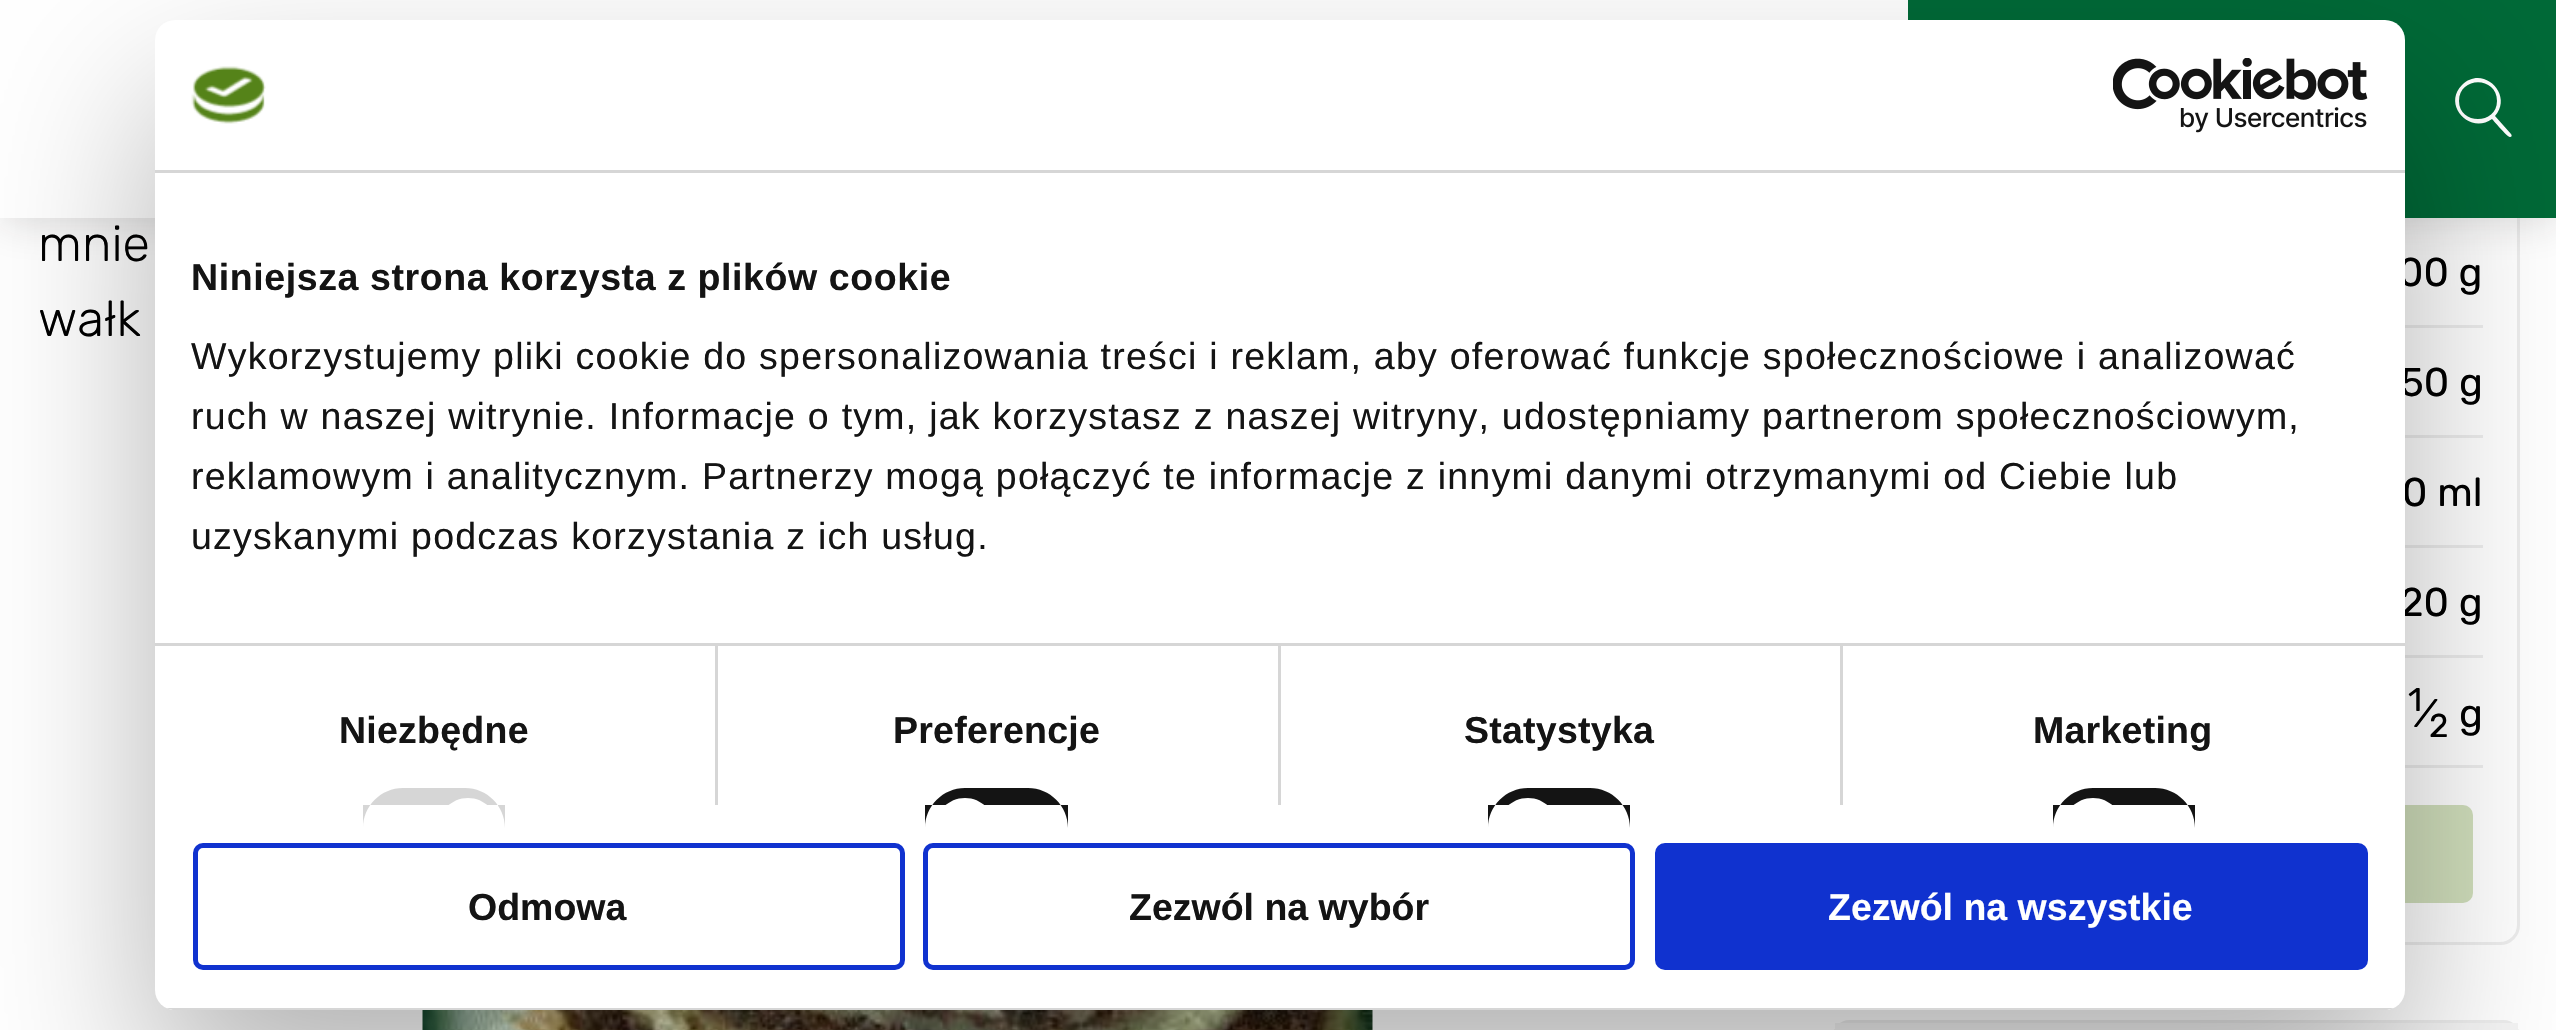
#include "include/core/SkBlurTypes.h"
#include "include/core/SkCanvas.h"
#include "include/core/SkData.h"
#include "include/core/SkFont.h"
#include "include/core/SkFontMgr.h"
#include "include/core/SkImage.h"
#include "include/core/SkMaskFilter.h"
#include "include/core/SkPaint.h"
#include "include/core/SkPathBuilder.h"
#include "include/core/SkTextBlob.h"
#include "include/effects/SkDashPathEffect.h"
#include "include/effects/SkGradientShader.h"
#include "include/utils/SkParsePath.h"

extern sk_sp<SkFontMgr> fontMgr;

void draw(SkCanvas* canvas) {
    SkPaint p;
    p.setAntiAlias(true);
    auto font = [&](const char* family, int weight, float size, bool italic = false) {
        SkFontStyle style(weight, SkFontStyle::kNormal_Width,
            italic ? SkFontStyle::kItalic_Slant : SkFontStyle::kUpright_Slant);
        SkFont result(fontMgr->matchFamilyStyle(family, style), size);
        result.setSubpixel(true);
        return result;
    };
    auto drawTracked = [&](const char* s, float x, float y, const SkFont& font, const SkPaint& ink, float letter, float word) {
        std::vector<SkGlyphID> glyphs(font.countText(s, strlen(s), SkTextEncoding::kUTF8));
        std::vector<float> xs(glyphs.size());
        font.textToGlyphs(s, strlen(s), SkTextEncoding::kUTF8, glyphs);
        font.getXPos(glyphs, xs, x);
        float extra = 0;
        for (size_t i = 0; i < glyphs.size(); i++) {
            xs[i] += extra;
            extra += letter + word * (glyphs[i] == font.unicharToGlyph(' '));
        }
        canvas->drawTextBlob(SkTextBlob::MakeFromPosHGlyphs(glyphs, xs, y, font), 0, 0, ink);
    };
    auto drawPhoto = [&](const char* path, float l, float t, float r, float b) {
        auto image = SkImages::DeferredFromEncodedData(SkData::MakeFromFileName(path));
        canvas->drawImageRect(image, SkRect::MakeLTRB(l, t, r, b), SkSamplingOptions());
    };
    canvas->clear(0xFFFFFFFF);
    p.setStyle(SkPaint::kStroke_Style);
    p.setStrokeWidth(3);
    p.setColor(0xFFEDEDED);
    canvas->drawRoundRect(SkRect::MakeLTRB(1834.5f, -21.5f, 2518.5f, 943.5f), 18.5f, 18.5f, p);
    p.setStyle(SkPaint::kFill_Style);
    p.setColor(0x2B231F20);
    p.setMaskFilter(SkMaskFilter::MakeBlur(kNormal_SkBlurStyle, 20));
    canvas->drawRect(SkRect::MakeLTRB(0, 3, 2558, 220), p);
    p.setMaskFilter(nullptr);
    p.setColor(0xFFFFFFFF);
    canvas->drawRect(SkRect::MakeLTRB(0, 0, 1908, 218), p);
    p.setColor(0xFF006937);
    canvas->drawRect(SkRect::MakeLTRB(1908, 0, 2556, 218), p);
    p.setColor(0xFFFFFFFF);
    canvas->drawPath(SkPathBuilder().moveTo(2511, 134).lineTo(2495, 116).cubicTo(2514, 95, 2483, 64, 2462, 85).cubicTo(2442, 105, 2470, 135, 2492, 119).cubicTo(2494, 121, 2508, 138, 2510, 137).cubicTo(2512, 137, 2512, 135, 2511, 134).close().moveTo(2459, 101).cubicTo(2459, 76, 2497, 76, 2497, 101).cubicTo(2497, 125, 2459, 125, 2459, 101).close().detach(), p);
    auto font1 = font("Rubik", 300, 50);
    p.setColor(0xFF000000);
    canvas->drawString("mnie", 38, 261, font1, p);
    canvas->drawString("wałk", 38, 336, font1, p);
    drawPhoto("media/1.png", 422, 1010, 1373, 1030);
    p.setColor(0xFFEDEDED);
    canvas->drawRect(SkRect::MakeLTRB(2405, 325, 2483, 328), p);
    auto font2 = font("Rubik", 400, 40);
    p.setColor(0xFF000000);
    canvas->drawString("00 g", 2398, 286, font2, p);
    p.setColor(0xFFEDEDED);
    canvas->drawRect(SkRect::MakeLTRB(2405, 435, 2483, 438), p);
    p.setColor(0xFF000000);
    canvas->drawString("50 g", 2400, 396, font2, p);
    p.setColor(0xFFEDEDED);
    canvas->drawRect(SkRect::MakeLTRB(2405, 545, 2483, 548), p);
    p.setColor(0xFF000000);
    canvas->drawString("0 ml", 2402, 506, font2, p);
    p.setColor(0xFFEDEDED);
    canvas->drawRect(SkRect::MakeLTRB(2405, 655, 2483, 658), p);
    p.setColor(0xFF000000);
    canvas->drawString("20 g", 2400, 616, font2, p);
    p.setColor(0xFFEDEDED);
    canvas->drawRect(SkRect::MakeLTRB(2405, 765, 2483, 768), p);
    auto font3 = font("Rubik", 400, 33);
    p.setColor(0xFF000000);
    canvas->drawString("1", 2408, 711, font3, p);
    canvas->drawString("⁄", 2422, 727, font2, p);
    canvas->drawString("2", 2429, 737, font3, p);
    canvas->drawString("g", 2459, 727, font2, p);
    p.setColor(0xFFD1DFBC);
    canvas->drawRoundRect(SkRect::MakeLTRB(1880, 805, 2473, 903), 10, 10, p);
    p.setStyle(SkPaint::kStroke_Style);
    p.setColor(0xFFEDEDED);
    canvas->drawRoundRect(SkRect::MakeLTRB(1834.5f, 1021.5f, 2518.5f, 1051.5f), 18.5f, 18.5f, p);
    p.setStyle(SkPaint::kFill_Style);
    p.setColor(0xFFF5F5F5);
    canvas->drawRect(SkRect::MakeLTRB(1835, 1023, 2518, 1030), p);
    p.setColor(0x4D000000);
    p.setMaskFilter(SkMaskFilter::MakeBlur(kNormal_SkBlurStyle, 85));
    canvas->drawRoundRect(SkRect::MakeLTRB(155, 100, 2405, 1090), 20, 20, p);
    p.setMaskFilter(nullptr);
    p.setColor(0xFFFFFFFF);
    canvas->drawRoundRect(SkRect::MakeLTRB(155, 20, 2405, 1010), 20, 20, p);
    p.setColor(0xFFD6D6D6);
    canvas->drawRect(SkRect::MakeLTRB(155, 170, 2405, 173), p);
    drawPhoto("media/2.png", 191, 66, 266, 124);
    drawPhoto("media/3.png", 2113, 58, 2368, 133);
    {
        const struct { float l, t, r, b; SkColor color; } items[] = {
            {715, 645, 718, 805, 0xFFD6D6D6},
            {1278, 645, 1281, 805, 0xFFD6D6D6},
            {1840, 645, 1843, 805, 0xFFD6D6D6},
            {155, 643, 2405, 646, 0xFFD6D6D6},
        };
        for (auto [l, t, r, b, color] : items) {
            p.setColor(color);
            canvas->drawRect(SkRect::MakeLTRB(l, t, r, b), p);
        }
    }
    auto font4 = font("Liberation Sans", 700, 37.5f);
    p.setColor(0xFF141414);
    drawTracked("Niniejsza strona korzysta z plików cookie", 191, 290, font4, p, 0.6f, 0);
    auto font5 = font("Liberation Sans", 400, 37.5f);
    {
        const struct { const char* s; float x, y; } items[] = {
            {"Wykorzystujemy pliki cookie do spersonalizowania treści i reklam, aby oferować funkcje społecznościowe i analizować", 191, 369},
            {"ruch w naszej witrynie. Informacje o tym, jak korzystasz z naszej witryny, udostępniamy partnerom społecznościowym,", 191, 429},
            {"reklamowym i analitycznym. Partnerzy mogą połączyć te informacje z innymi danymi otrzymanymi od Ciebie lub", 191, 489},
            {"uzyskanymi podczas korzystania z ich usług.", 191, 549},
        };
        for (auto [s, x, y] : items) {
            drawTracked(s, x, y, font5, p, 1.25f, 0);
        }
    }
    drawTracked("Niezbędne", 339, 743, font4, p, 0.25f, 0);
    p.setColor(0xFFD6D6D6);
    canvas->drawPath(SkPathBuilder().moveTo(403, 788).lineTo(465, 788).cubicTo(487, 788, 505, 806, 505, 828).lineTo(505, 805).lineTo(363, 805).lineTo(363, 828).cubicTo(363, 806, 381, 788, 403, 788).close().detach(), p);
    p.setColor(0xFFFFFFFF);
    canvas->drawPath(SkPathBuilder().moveTo(468, 798).cubicTo(484.5f, 798, 498, 811.5f, 498, 828).lineTo(498, 805).lineTo(438, 805).lineTo(438, 828).cubicTo(438, 811.5f, 451.5f, 798, 468, 798).close().detach(), p);
    p.setColor(0xFF141414);
    drawTracked("Preferencje", 893, 743, font4, p, 0.25f, 0);
    canvas->drawPath(SkPathBuilder().moveTo(965, 788).lineTo(1028, 788).cubicTo(1050, 788, 1068, 806, 1068, 828).lineTo(1068, 805).lineTo(925, 805).lineTo(925, 828).cubicTo(925, 806, 943, 788, 965, 788).close().detach(), p);
    p.setColor(0xFFFFFFFF);
    canvas->drawPath(SkPathBuilder().moveTo(965, 798).cubicTo(981.5f, 798, 995, 811.5f, 995, 828).lineTo(995, 805).lineTo(935, 805).lineTo(935, 828).cubicTo(935, 811.5f, 948.5f, 798, 965, 798).close().detach(), p);
    p.setColor(0xFF141414);
    drawTracked("Statystyka", 1464, 743, font4, p, 0.25f, 0);
    canvas->drawPath(SkPathBuilder().moveTo(1528, 788).lineTo(1590, 788).cubicTo(1612, 788, 1630, 806, 1630, 828).lineTo(1630, 805).lineTo(1488, 805).lineTo(1488, 828).cubicTo(1488, 806, 1506, 788, 1528, 788).close().detach(), p);
    p.setColor(0xFFFFFFFF);
    canvas->drawPath(SkPathBuilder().moveTo(1528, 798).cubicTo(1544.5f, 798, 1558, 811.5f, 1558, 828).lineTo(1558, 805).lineTo(1498, 805).lineTo(1498, 828).cubicTo(1498, 811.5f, 1511.5f, 798, 1528, 798).close().detach(), p);
    p.setColor(0xFF141414);
    drawTracked("Marketing", 2033, 743, font4, p, 0.25f, 0);
    canvas->drawPath(SkPathBuilder().moveTo(2093, 788).lineTo(2155, 788).cubicTo(2177, 788, 2195, 806, 2195, 828).lineTo(2195, 805).lineTo(2053, 805).lineTo(2053, 828).cubicTo(2053, 806, 2071, 788, 2093, 788).close().detach(), p);
    p.setColor(0xFFFFFFFF);
    canvas->drawPath(SkPathBuilder().moveTo(2093, 798).cubicTo(2109.5f, 798, 2123, 811.5f, 2123, 828).lineTo(2123, 805).lineTo(2063, 805).lineTo(2063, 828).cubicTo(2063, 811.5f, 2076.5f, 798, 2093, 798).close().detach(), p);
    canvas->save();
    canvas->clipPath(SkPathBuilder().moveTo(175, 20).lineTo(2385, 20).cubicTo(2396, 20, 2405, 29, 2405, 40).lineTo(2405, 990).cubicTo(2405, 1001, 2396, 1010, 2385, 1010).lineTo(175, 1010).cubicTo(164, 1010, 155, 1001, 155, 990).lineTo(155, 40).cubicTo(155, 29, 164, 20, 175, 20).close().detach(), true);
    p.setColor(0xFFD6D6D6);
    canvas->drawRect(SkRect::MakeLTRB(166, 1008, 2394, 1010), p);
    canvas->restore();
    p.setStyle(SkPaint::kStroke_Style);
    p.setStrokeWidth(5);
    p.setColor(0xFF1032CF);
    canvas->drawRoundRect(SkRect::MakeLTRB(195.5f, 845.5f, 902.5f, 967.5f), 7.5f, 7.5f, p);
    p.setStyle(SkPaint::kFill_Style);
    p.setColor(0xFF141414);
    canvas->drawString("Odmowa", 468, 920, font4, p);
    p.setStyle(SkPaint::kStroke_Style);
    p.setColor(0xFF1032CF);
    canvas->drawRoundRect(SkRect::MakeLTRB(925.5f, 845.5f, 1632.5f, 967.5f), 7.5f, 7.5f, p);
    p.setStyle(SkPaint::kFill_Style);
    p.setColor(0xFF141414);
    canvas->drawString("Zezwól na wybór", 1129, 920, font4, p);
    p.setColor(0xFF1032CF);
    canvas->drawRoundRect(SkRect::MakeLTRB(1657.5f, 845.5f, 2365.5f, 967.5f), 7.5f, 7.5f, p);
    p.setStyle(SkPaint::kStroke_Style);
    canvas->drawRoundRect(SkRect::MakeLTRB(1657.5f, 845.5f, 2365.5f, 967.5f), 7.5f, 7.5f, p);
    p.setStyle(SkPaint::kFill_Style);
    p.setColor(0xFFFFFFFF);
    canvas->drawString("Zezwól na wszystkie", 1828, 920, font4, p);
}
